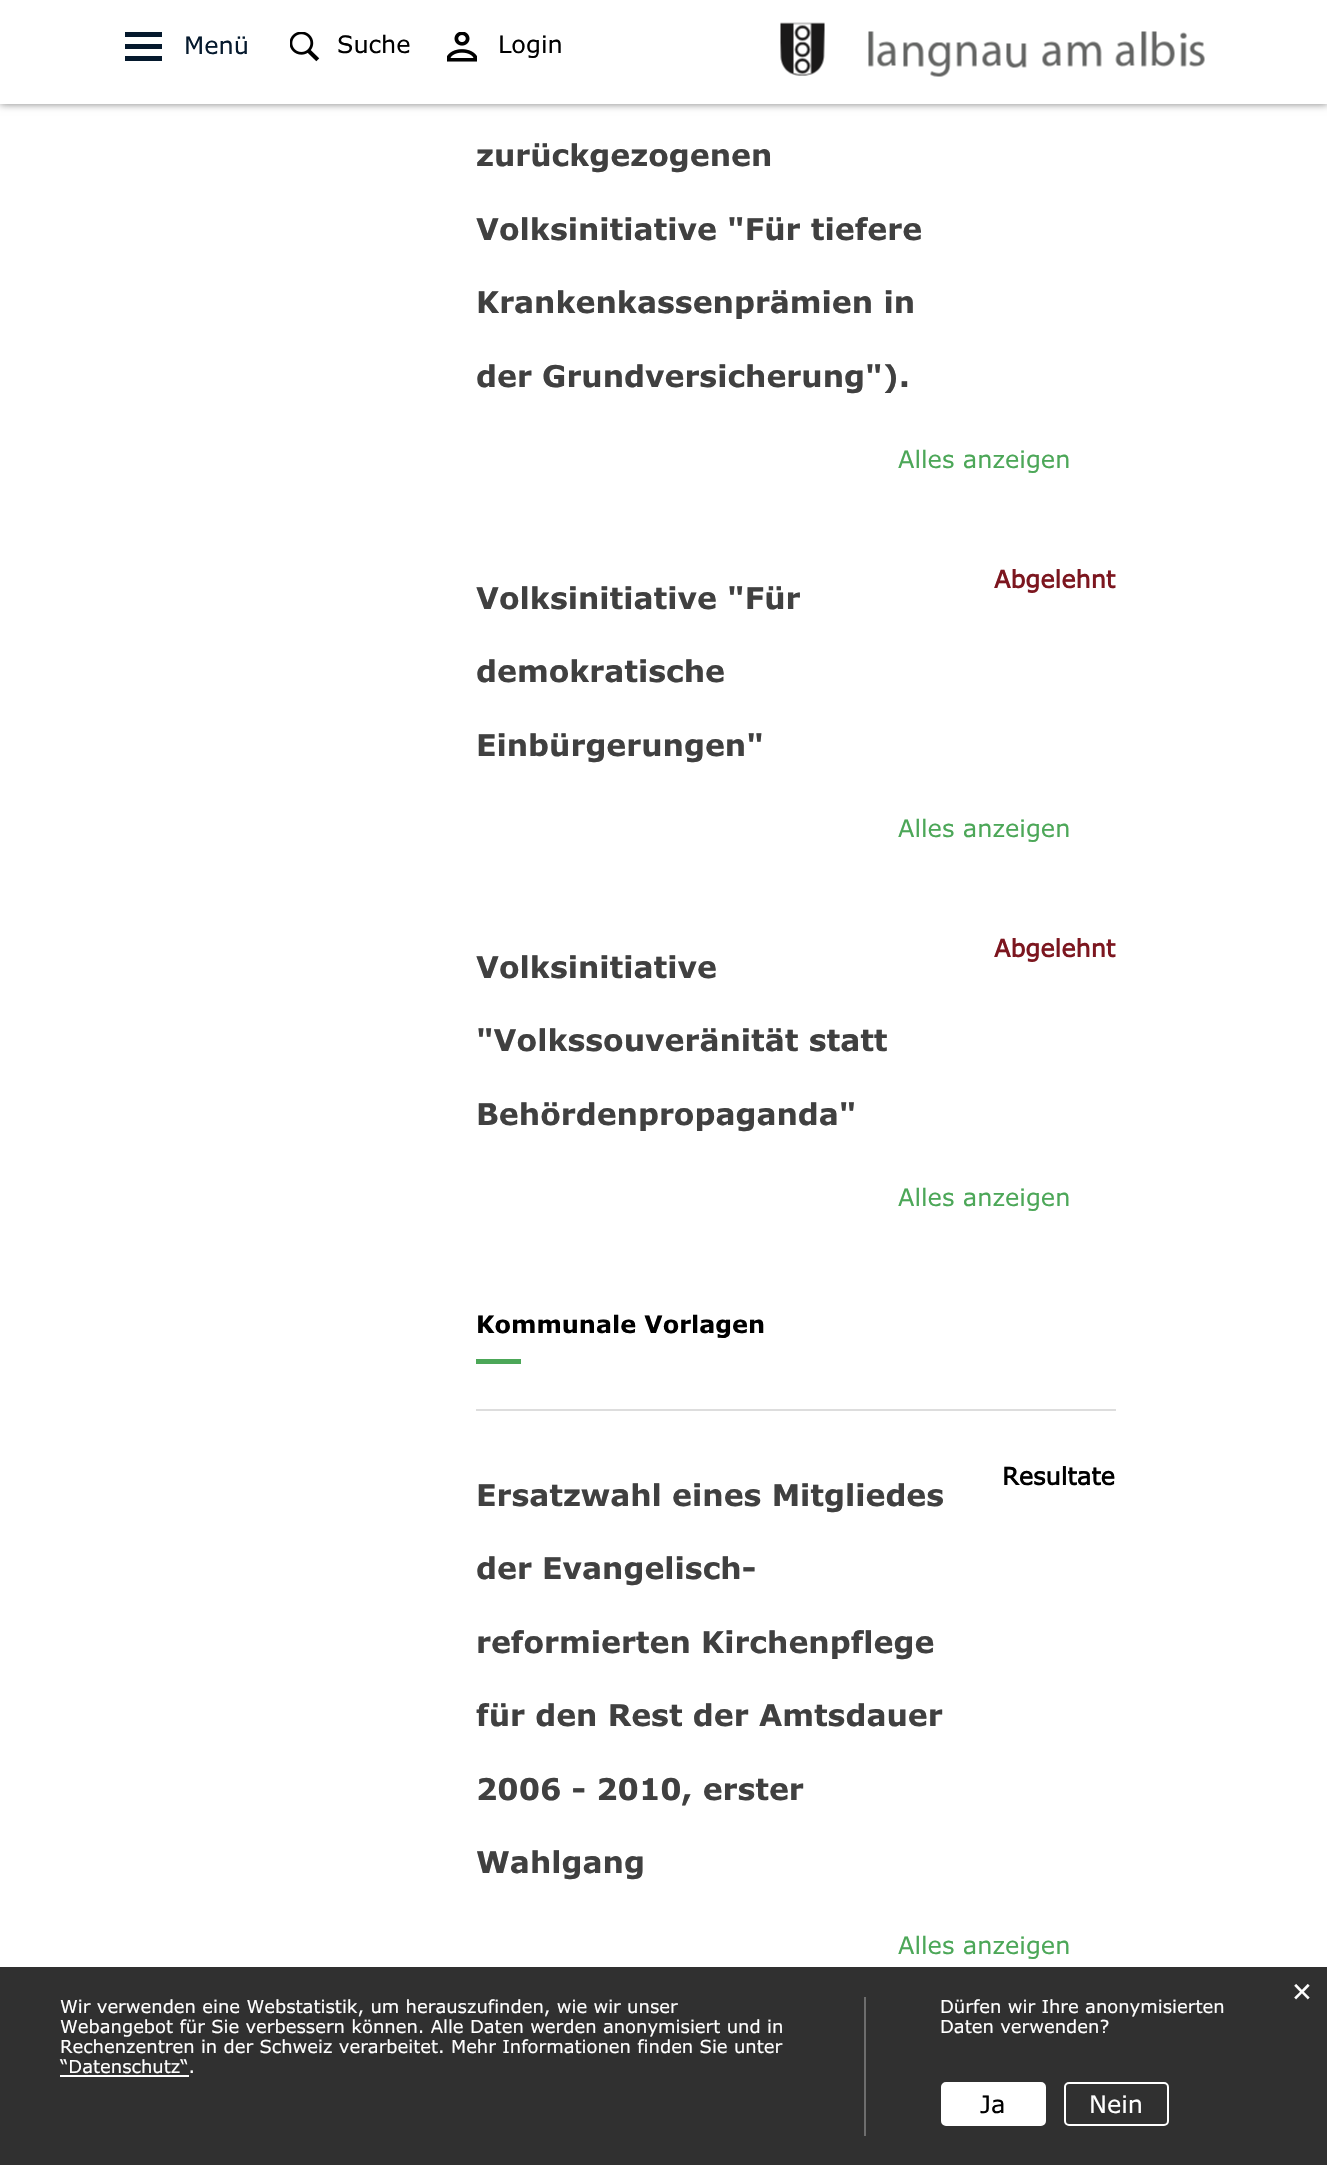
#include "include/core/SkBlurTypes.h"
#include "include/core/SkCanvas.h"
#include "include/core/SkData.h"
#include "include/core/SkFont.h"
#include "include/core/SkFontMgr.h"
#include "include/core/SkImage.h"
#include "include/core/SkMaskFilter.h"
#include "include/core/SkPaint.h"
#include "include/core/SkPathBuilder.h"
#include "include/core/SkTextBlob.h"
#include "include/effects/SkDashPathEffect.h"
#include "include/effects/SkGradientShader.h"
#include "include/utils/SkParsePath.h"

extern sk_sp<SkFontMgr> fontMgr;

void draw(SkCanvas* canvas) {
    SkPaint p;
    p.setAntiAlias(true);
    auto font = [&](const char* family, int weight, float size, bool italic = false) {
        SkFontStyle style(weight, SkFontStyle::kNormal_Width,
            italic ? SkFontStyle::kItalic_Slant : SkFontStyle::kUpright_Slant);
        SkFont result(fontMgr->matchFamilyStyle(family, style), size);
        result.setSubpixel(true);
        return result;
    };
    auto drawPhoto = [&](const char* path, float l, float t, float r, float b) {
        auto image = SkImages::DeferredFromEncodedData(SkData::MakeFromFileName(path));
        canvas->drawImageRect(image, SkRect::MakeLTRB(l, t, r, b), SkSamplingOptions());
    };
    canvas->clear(0xFFFFFFFF);
    p.setColor(0x80000000);
    p.setMaskFilter(SkMaskFilter::MakeBlur(kNormal_SkBlurStyle, 4));
    canvas->drawRect(SkRect::MakeLTRB(0, 0, 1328, 104), p);
    p.setMaskFilter(nullptr);
    {
        const struct { float l, t, r, b; SkColor color; } items[] = {
            {0, 0, 1327, 104, 0xFFFFFFFF},
            {125, 32, 162, 37, 0xFF05192D},
            {125, 44, 162, 49, 0xFF05192D},
            {125, 56, 162, 61, 0xFF05192D},
        };
        for (auto [l, t, r, b, color] : items) {
            p.setColor(color);
            canvas->drawRect(SkRect::MakeLTRB(l, t, r, b), p);
        }
    }
    auto font1 = font("Verdana", 400, 24);
    canvas->drawString("Menü", 184, 54, font1, p);
    drawPhoto("media/1.png", 290, 32, 320, 62);
    p.setColor(0xFF000000);
    canvas->drawString("Suche", 337, 53, font1, p);
    drawPhoto("media/2.png", 447, 32, 477, 62);
    canvas->drawString("Login", 498, 53, font1, p);
    drawPhoto("media/3.png", 780, 22, 1205, 77);
    auto font2 = font("Verdana", 700, 30);
    p.setColor(0xFF404040);
    {
        const struct { const char* s; float x, y; } items[] = {
            {"zurückgezogenen", 476, 166},
            {"Volksinitiative \"Für tiefere", 476, 240},
            {"Krankenkassenprämien in", 476, 313},
            {"der Grundversicherung\").", 476, 387},
        };
        for (auto [s, x, y] : items) {
            canvas->drawString(s, x, y, font2, p);
        }
    }
    p.setColor(0xFF4CA758);
    canvas->drawString("Alles anzeigen", 898, 468, font1, p);
    auto font3 = font("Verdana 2", 700, 24);
    p.setColor(0xFF7C161F);
    canvas->drawString("Abgelehnt", 994, 588, font3, p);
    p.setColor(0xFF404040);
    {
        const struct { const char* s; float x, y; } items[] = {
            {"Volksinitiative \"Für", 476, 609},
            {"demokratische", 476, 682},
            {"Einbürgerungen\"", 476, 756},
        };
        for (auto [s, x, y] : items) {
            canvas->drawString(s, x, y, font2, p);
        }
    }
    p.setColor(0xFF4CA758);
    canvas->drawString("Alles anzeigen", 898, 837, font1, p);
    p.setColor(0xFF7C161F);
    canvas->drawString("Abgelehnt", 994, 957, font3, p);
    p.setColor(0xFF404040);
    {
        const struct { const char* s; float x, y; } items[] = {
            {"Volksinitiative", 476, 978},
            {"\"Volkssouveränität statt", 476, 1051},
            {"Behördenpropaganda\"", 476, 1125},
        };
        for (auto [s, x, y] : items) {
            canvas->drawString(s, x, y, font2, p);
        }
    }
    p.setColor(0xFF4CA758);
    canvas->drawString("Alles anzeigen", 898, 1206, font1, p);
    auto font4 = font("Verdana", 700, 24);
    p.setColor(0xFF000000);
    canvas->drawString("Kommunale Vorlagen", 476, 1333, font4, p);
    p.setColor(0xFF4CA758);
    canvas->drawRect(SkRect::MakeLTRB(476, 1359, 521, 1364), p);
    p.setColor(0xFFDDDDDD);
    canvas->drawRect(SkRect::MakeLTRB(476, 1409, 1116, 1411), p);
    p.setColor(0xFF000000);
    canvas->drawString("Resultate", 1002, 1485, font3, p);
    p.setColor(0xFF404040);
    {
        const struct { const char* s; float x, y; } items[] = {
            {"Ersatzwahl eines Mitgliedes", 476, 1506},
            {"der Evangelisch-", 476, 1579},
            {"reformierten Kirchenpflege", 476, 1653},
            {"für den Rest der Amtsdauer", 476, 1726},
            {"2006 - 2010, erster", 476, 1800},
            {"Wahlgang", 476, 1873},
        };
        for (auto [s, x, y] : items) {
            canvas->drawString(s, x, y, font2, p);
        }
    }
    p.setColor(0xFF4CA758);
    canvas->drawString("Alles anzeigen", 898, 1954, font1, p);
    p.setColor(0xFF303030);
    canvas->drawRect(SkRect::MakeLTRB(0, 1967, 1327, 2165), p);
    auto font5 = font("Liberation Sans", 400, 34);
    p.setColor(0xFFFFFFFF);
    canvas->drawString("×", 1292, 2003, font5, p);
    p.setColor(0xFF6D6D6D);
    canvas->drawRect(SkRect::MakeLTRB(864, 1997, 866, 2136), p);
    auto font6 = font("Verdana", 400, 18);
    p.setColor(0xFFFFFFFF);
    {
        const struct { const char* s; float x, y; } items[] = {
            {"Wir verwenden eine Webstatistik, um herauszufinden, wie wir unser", 60, 2013},
            {"Webangebot für Sie verbessern können. Alle Daten werden anonymisiert und in", 60, 2033},
            {"Rechenzentren in der Schweiz verarbeitet. Mehr Informationen finden Sie unter", 60, 2053},
            {"“Datenschutz“.", 60, 2073},
        };
        for (auto [s, x, y] : items) {
            canvas->drawString(s, x, y, font6, p);
        }
    }
    canvas->drawRect(SkRect::MakeLTRB(60, 2075, 189, 2077), p);
    canvas->drawString("Dürfen wir Ihre anonymisierten", 940, 2013, font6, p);
    canvas->drawString("Daten verwenden?", 940, 2033, font6, p);
    canvas->drawRoundRect(SkRect::MakeLTRB(942, 2083, 1045, 2125), 4, 4, p);
    p.setStyle(SkPaint::kStroke_Style);
    p.setStrokeWidth(2);
    canvas->drawRoundRect(SkRect::MakeLTRB(942, 2083, 1045, 2125), 4, 4, p);
    p.setStyle(SkPaint::kFill_Style);
    p.setColor(0xFF000000);
    canvas->drawString("Ja", 980, 2113, font1, p);
    p.setStyle(SkPaint::kStroke_Style);
    p.setColor(0xFFFFFFFF);
    canvas->drawRoundRect(SkRect::MakeLTRB(1065, 2083, 1168, 2125), 4, 4, p);
    p.setStyle(SkPaint::kFill_Style);
    canvas->drawString("Nein", 1089, 2113, font1, p);
}
